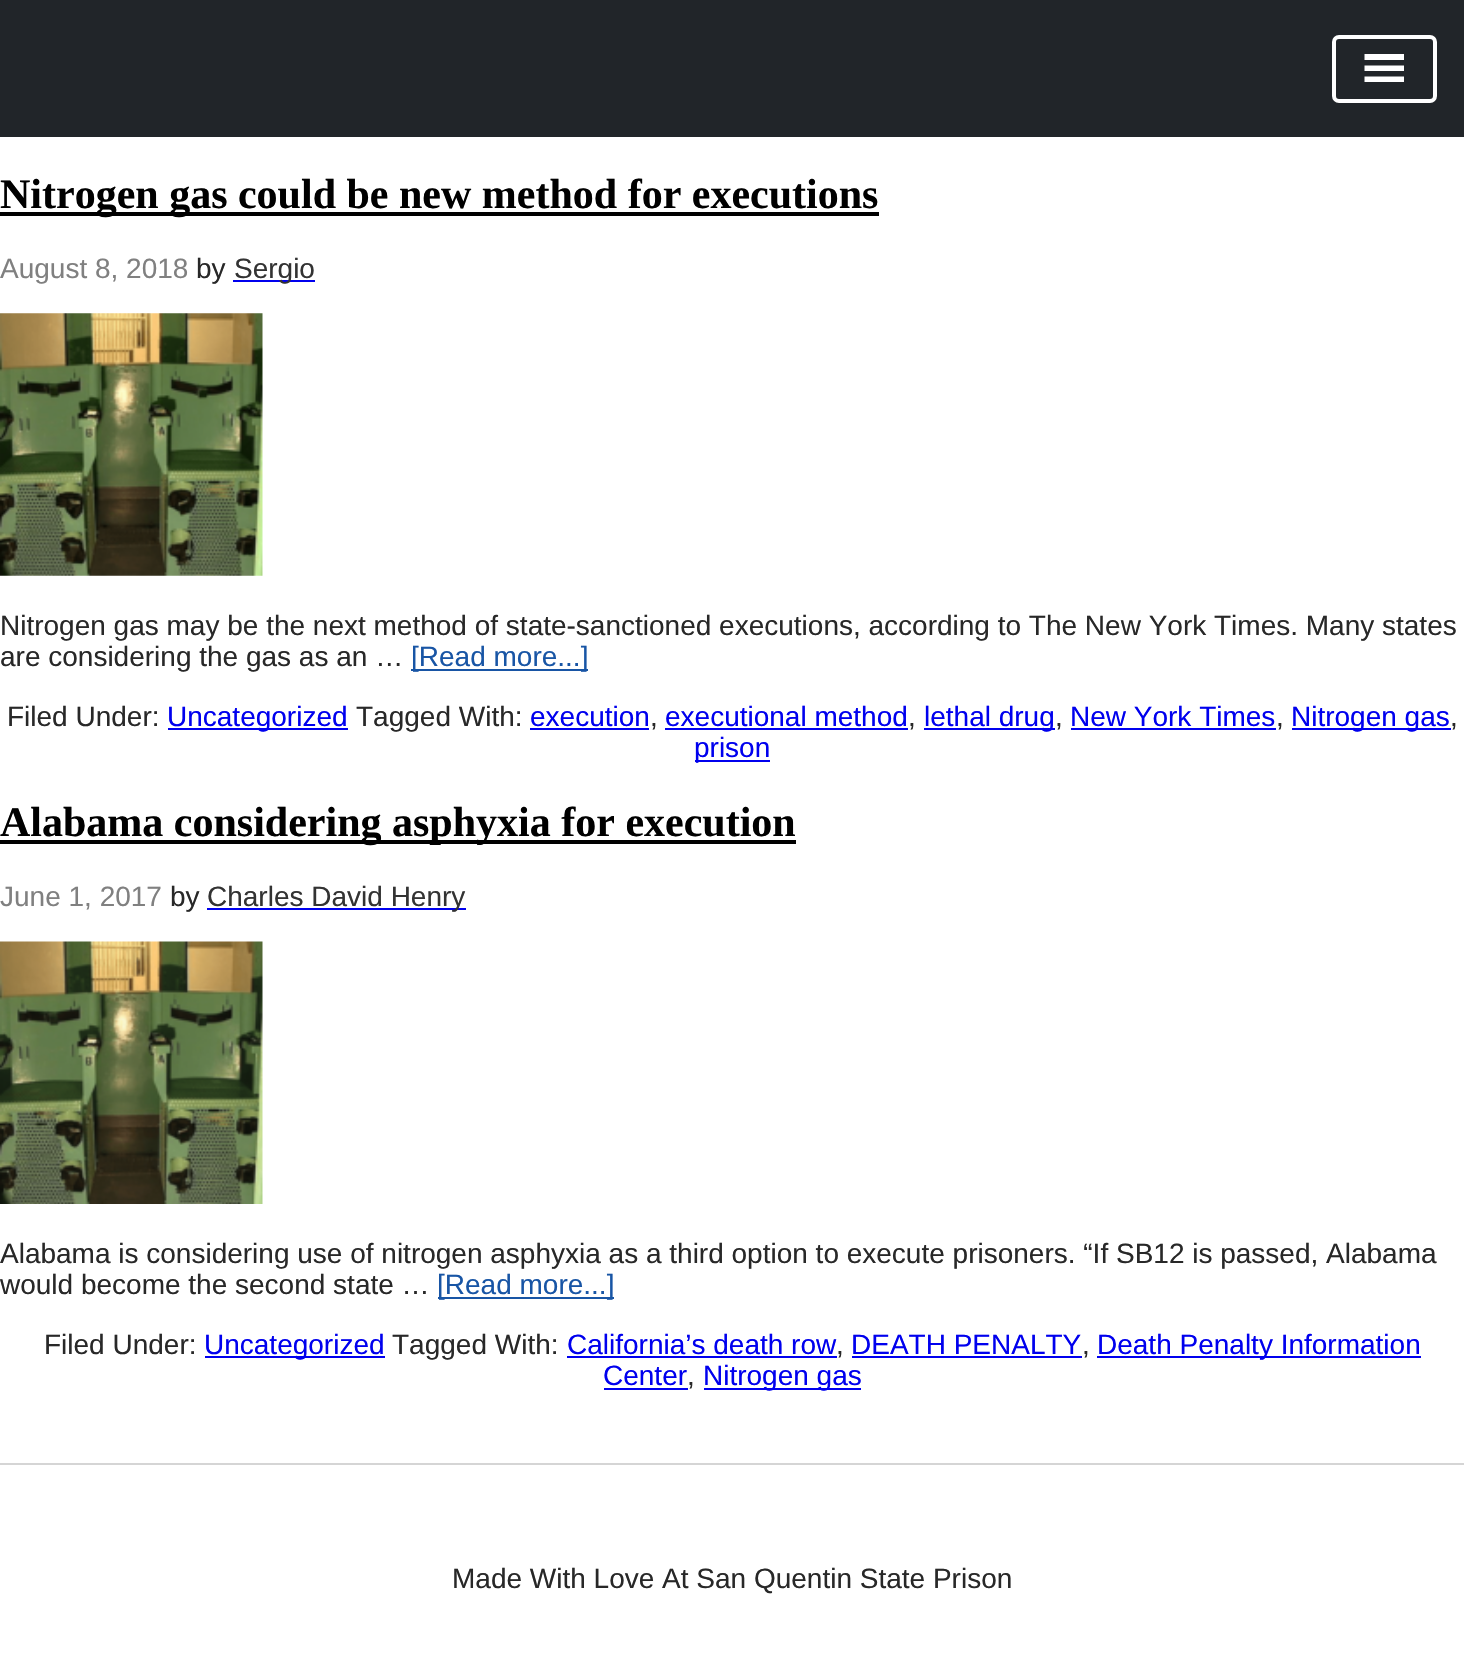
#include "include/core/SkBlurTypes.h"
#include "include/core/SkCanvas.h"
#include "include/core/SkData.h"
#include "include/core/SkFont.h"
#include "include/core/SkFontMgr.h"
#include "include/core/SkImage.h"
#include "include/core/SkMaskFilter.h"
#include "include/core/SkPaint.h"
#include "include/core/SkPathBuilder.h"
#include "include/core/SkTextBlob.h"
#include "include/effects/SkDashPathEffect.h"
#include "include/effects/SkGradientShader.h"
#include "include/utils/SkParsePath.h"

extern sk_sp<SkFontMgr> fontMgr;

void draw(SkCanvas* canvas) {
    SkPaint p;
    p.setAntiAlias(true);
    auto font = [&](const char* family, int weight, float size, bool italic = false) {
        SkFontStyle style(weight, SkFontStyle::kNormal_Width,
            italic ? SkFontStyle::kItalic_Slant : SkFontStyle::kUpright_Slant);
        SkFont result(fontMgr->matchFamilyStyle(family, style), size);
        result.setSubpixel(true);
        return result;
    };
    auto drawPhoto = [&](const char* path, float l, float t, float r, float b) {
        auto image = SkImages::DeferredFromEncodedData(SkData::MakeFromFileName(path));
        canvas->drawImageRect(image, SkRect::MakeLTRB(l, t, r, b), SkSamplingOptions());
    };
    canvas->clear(0xFFFFFFFF);
    p.setColor(0xFF212529);
    canvas->drawRect(SkRect::MakeLTRB(0, 0, 1464, 137), p);
    p.setStyle(SkPaint::kStroke_Style);
    p.setStrokeWidth(4);
    p.setColor(0xFFFFFFFF);
    canvas->drawRoundRect(SkRect::MakeLTRB(1334, 37, 1435, 101), 5, 5, p);
    p.setStyle(SkPaint::kFill_Style);
    canvas->drawPath(SkPathBuilder().moveTo(1364.5f, 82).lineTo(1404, 82).lineTo(1404, 76.5f).lineTo(1364.5f, 76.5f).close().moveTo(1364.5f, 54).lineTo(1364.5f, 60).lineTo(1404, 60).lineTo(1404, 54).close().moveTo(1364.5f, 71).lineTo(1404, 71).lineTo(1404, 65.5f).lineTo(1364.5f, 65.5f).close().detach(), p);
    p.setColor(0xFF000000);
    canvas->drawRect(SkRect::MakeLTRB(0, 212, 879, 216), p);
    auto font1 = font("Liberation Serif", 700, 42);
    canvas->drawString("Nitrogen gas could be new method for executions", 0, 208, font1, p);
    auto font2 = font("Liberation Sans", 400, 28);
    p.setColor(0xFF808080);
    canvas->drawString("August 8, 2018", 0, 278, font2, p);
    p.setColor(0xFF282828);
    canvas->drawString("by", 196, 278, font2, p);
    p.setColor(0xFF0000EE);
    canvas->drawRect(SkRect::MakeLTRB(233, 280, 315, 282), p);
    p.setColor(0xFF333333);
    canvas->drawString("Sergio", 234, 278, font2, p);
    drawPhoto("media/1.png", 0, 313, 263, 576);
    p.setColor(0xFF282828);
    canvas->drawString("Nitrogen gas may be the next method of state-sanctioned executions, according to The New York Times. Many states", 0, 635, font2, p);
    canvas->drawString("are considering the gas as an …", 0, 666, font2, p);
    p.setColor(0xFF1855A5);
    canvas->drawRect(SkRect::MakeLTRB(411, 669, 588, 671), p);
    canvas->drawString("[Read more...]", 411, 666, font2, p);
    p.setColor(0xFF282828);
    canvas->drawString("Filed Under:", 7, 726, font2, p);
    p.setColor(0xFF0000EE);
    canvas->drawRect(SkRect::MakeLTRB(168, 728, 348, 730), p);
    canvas->drawString("Uncategorized", 167, 726, font2, p);
    p.setColor(0xFF282828);
    canvas->drawString("Tagged With:", 356, 726, font2, p);
    p.setColor(0xFF0000EE);
    canvas->drawString("execution", 530, 726, font2, p);
    p.setColor(0xFF282828);
    canvas->drawString(",", 650, 726, font2, p);
    p.setColor(0xFF0000EE);
    canvas->drawRect(SkRect::MakeLTRB(530, 728, 649, 730), p);
    canvas->drawString("executional method", 665, 726, font2, p);
    p.setColor(0xFF282828);
    canvas->drawString(",", 908, 726, font2, p);
    p.setColor(0xFF0000EE);
    canvas->drawRect(SkRect::MakeLTRB(665, 728, 908, 730), p);
    canvas->drawRect(SkRect::MakeLTRB(924, 728, 1055, 730), p);
    canvas->drawString("lethal drug", 924, 726, font2, p);
    p.setColor(0xFF282828);
    canvas->drawString(",", 1055, 726, font2, p);
    p.setColor(0xFF0000EE);
    canvas->drawString("New York Times", 1070, 726, font2, p);
    p.setColor(0xFF282828);
    canvas->drawString(",", 1276, 726, font2, p);
    p.setColor(0xFF0000EE);
    canvas->drawRect(SkRect::MakeLTRB(1071, 728, 1276, 730), p);
    canvas->drawRect(SkRect::MakeLTRB(1292, 728, 1451, 730), p);
    canvas->drawString("Nitrogen gas", 1291, 726, font2, p);
    p.setColor(0xFF282828);
    canvas->drawString(",", 1450, 726, font2, p);
    p.setColor(0xFF0000EE);
    canvas->drawRect(SkRect::MakeLTRB(695, 760, 770, 762), p);
    canvas->drawString("prison", 694, 757, font2, p);
    p.setColor(0xFF000000);
    canvas->drawRect(SkRect::MakeLTRB(0, 840, 796, 844), p);
    canvas->drawString("Alabama considering asphyxia for execution", 0, 836, font1, p);
    p.setColor(0xFF808080);
    canvas->drawString("June 1, 2017", 0, 906, font2, p);
    p.setColor(0xFF282828);
    canvas->drawString("by", 170, 906, font2, p);
    p.setColor(0xFF0000EE);
    canvas->drawRect(SkRect::MakeLTRB(207, 908, 466, 910), p);
    p.setColor(0xFF333333);
    canvas->drawString("Charles David Henry", 207, 906, font2, p);
    drawPhoto("media/2.png", 0, 941, 263, 1204);
    p.setColor(0xFF282828);
    canvas->drawString("Alabama is considering use of nitrogen asphyxia as a third option to execute prisoners. “If SB12 is passed, Alabama", 0, 1263, font2, p);
    canvas->drawString("would become the second state …", 0, 1294, font2, p);
    p.setColor(0xFF1855A5);
    canvas->drawRect(SkRect::MakeLTRB(438, 1297, 614, 1299), p);
    canvas->drawString("[Read more...]", 437, 1294, font2, p);
    p.setColor(0xFF282828);
    canvas->drawString("Filed Under:", 44, 1354, font2, p);
    p.setColor(0xFF0000EE);
    canvas->drawRect(SkRect::MakeLTRB(205, 1356, 385, 1358), p);
    canvas->drawString("Uncategorized", 204, 1354, font2, p);
    p.setColor(0xFF282828);
    canvas->drawString("Tagged With:", 392, 1354, font2, p);
    p.setColor(0xFF0000EE);
    canvas->drawString("California’s death row", 567, 1354, font2, p);
    p.setColor(0xFF282828);
    canvas->drawString(",", 836, 1354, font2, p);
    p.setColor(0xFF0000EE);
    canvas->drawRect(SkRect::MakeLTRB(567, 1356, 837, 1358), p);
    canvas->drawString("DEATH PENALTY", 851, 1354, font2, p);
    p.setColor(0xFF282828);
    canvas->drawString(",", 1082, 1354, font2, p);
    p.setColor(0xFF0000EE);
    canvas->drawRect(SkRect::MakeLTRB(852, 1356, 1082, 1358), p);
    canvas->drawRect(SkRect::MakeLTRB(1097, 1356, 1421, 1358), p);
    canvas->drawString("Death Penalty Information", 1097, 1354, font2, p);
    canvas->drawString("Center", 603, 1385, font2, p);
    p.setColor(0xFF282828);
    canvas->drawString(",", 687, 1385, font2, p);
    p.setColor(0xFF0000EE);
    canvas->drawRect(SkRect::MakeLTRB(604, 1388, 688, 1390), p);
    canvas->drawRect(SkRect::MakeLTRB(704, 1388, 861, 1390), p);
    canvas->drawString("Nitrogen gas", 703, 1385, font2, p);
    p.setColor(0xFFD5D5D5);
    canvas->drawRect(SkRect::MakeLTRB(0, 1463, 1464, 1465), p);
    p.setColor(0xFF282828);
    canvas->drawString("Made With Love At San Quentin State Prison", 452, 1588, font2, p);
}
